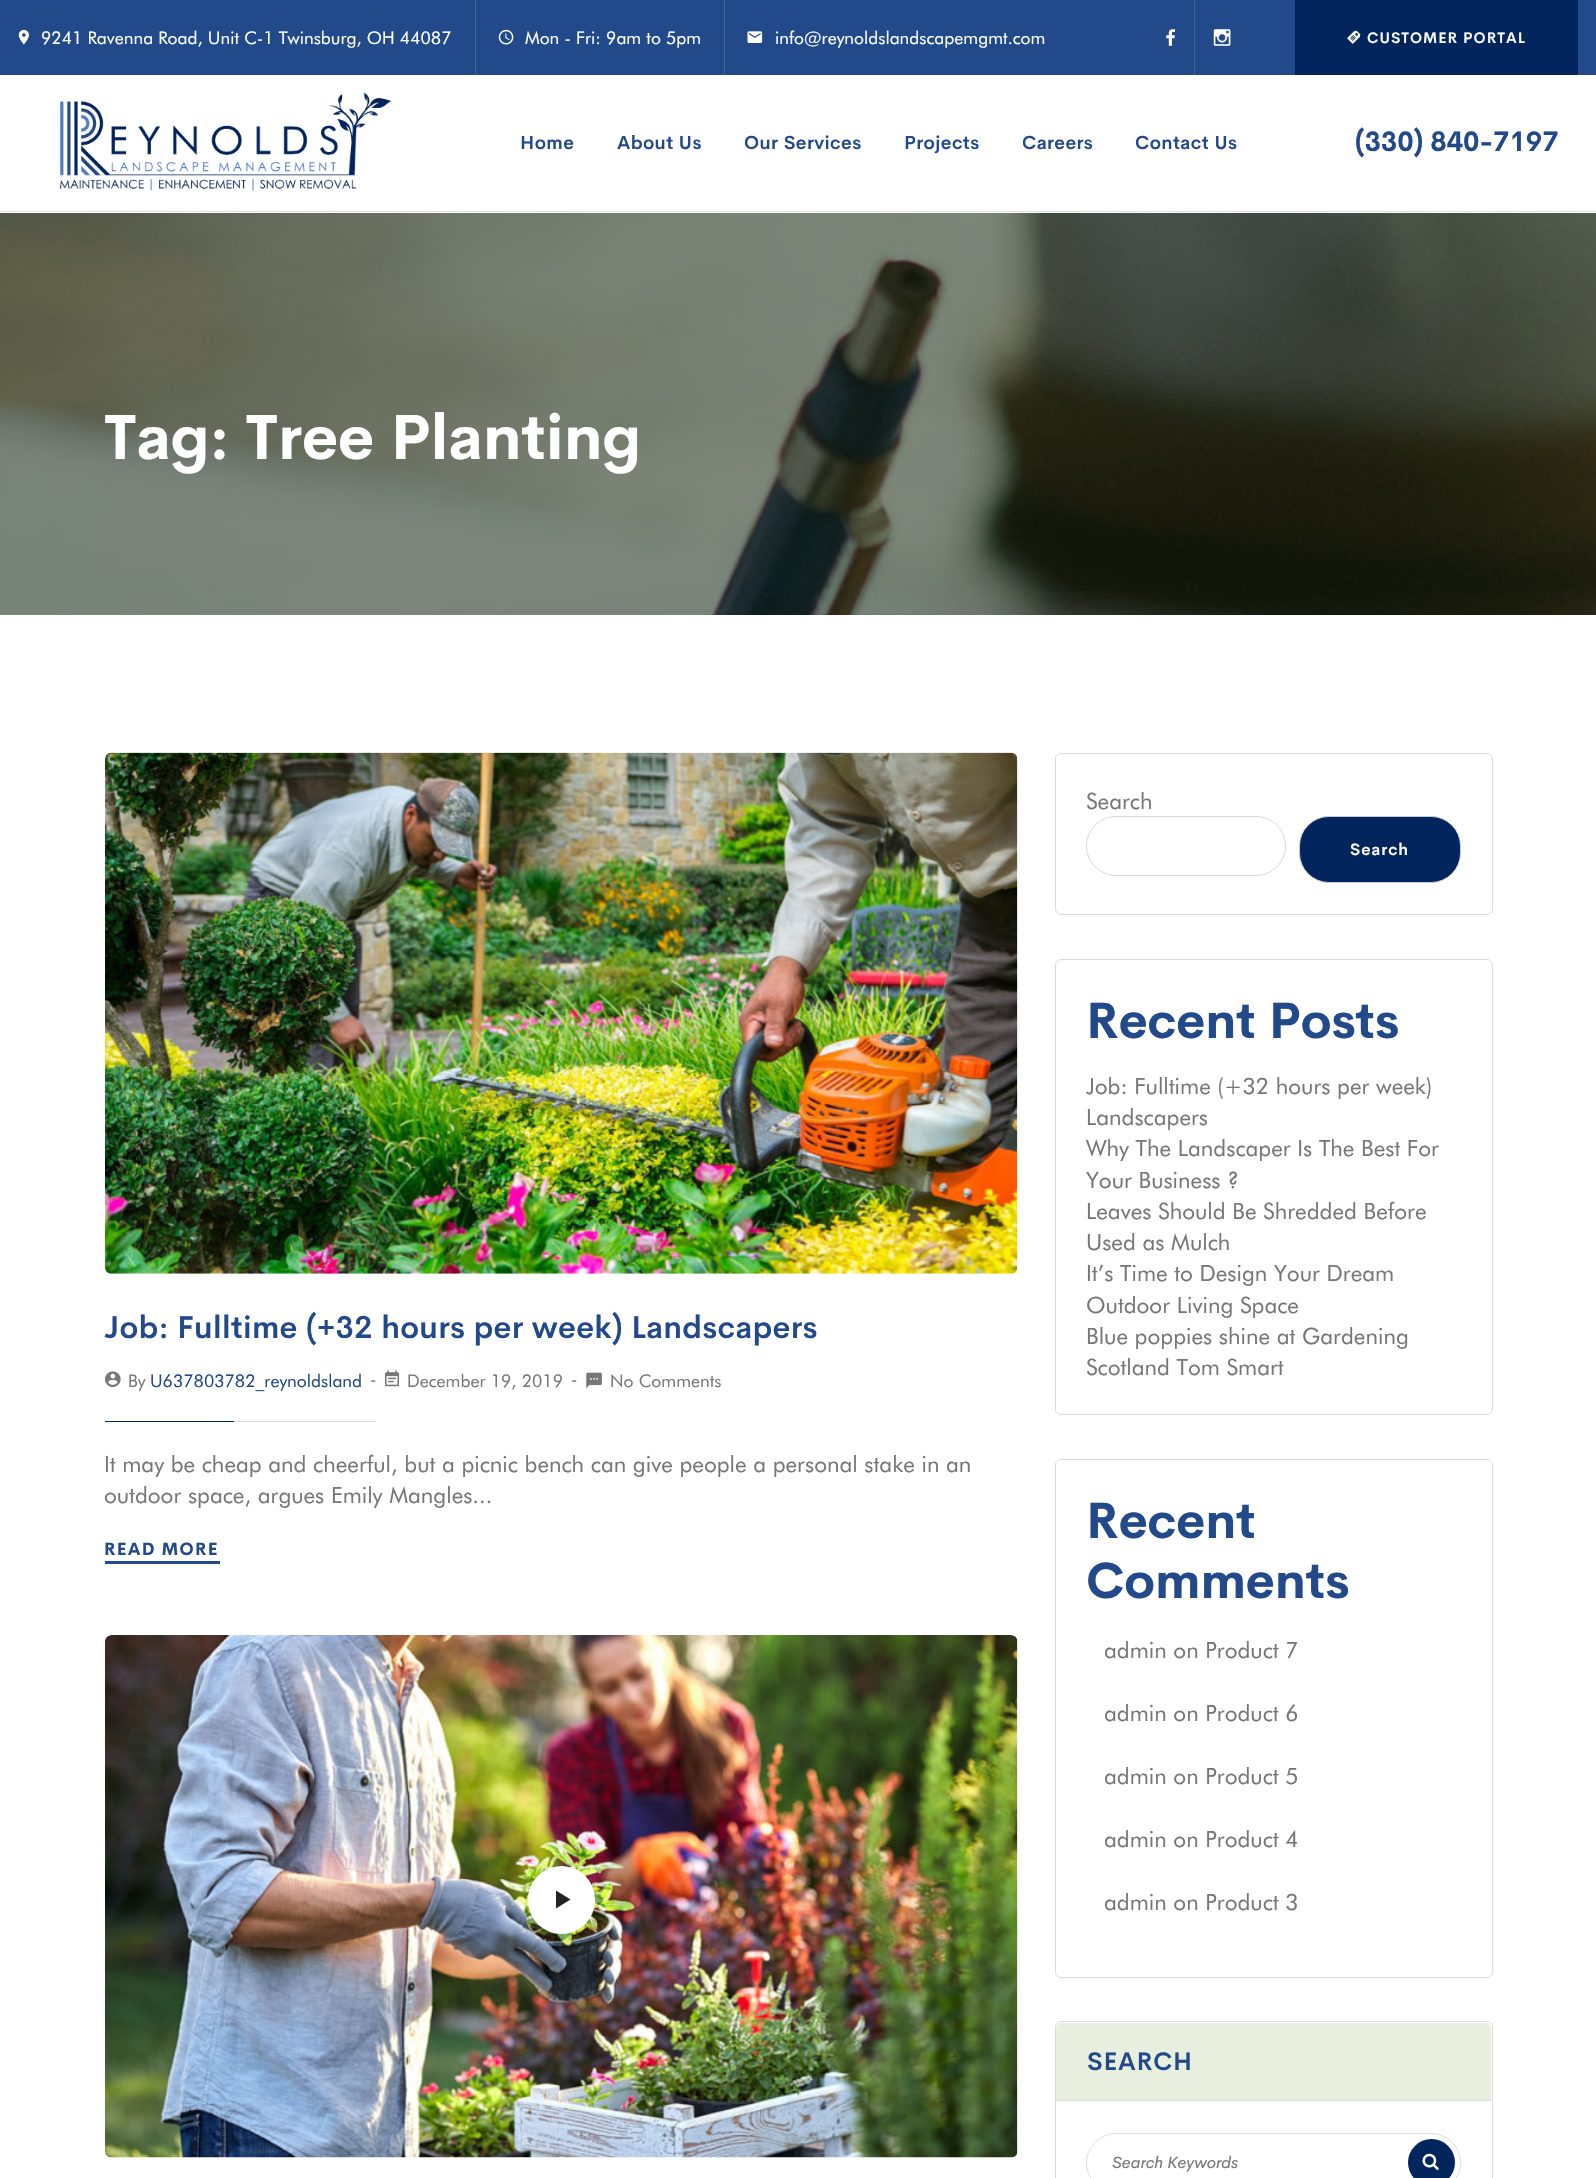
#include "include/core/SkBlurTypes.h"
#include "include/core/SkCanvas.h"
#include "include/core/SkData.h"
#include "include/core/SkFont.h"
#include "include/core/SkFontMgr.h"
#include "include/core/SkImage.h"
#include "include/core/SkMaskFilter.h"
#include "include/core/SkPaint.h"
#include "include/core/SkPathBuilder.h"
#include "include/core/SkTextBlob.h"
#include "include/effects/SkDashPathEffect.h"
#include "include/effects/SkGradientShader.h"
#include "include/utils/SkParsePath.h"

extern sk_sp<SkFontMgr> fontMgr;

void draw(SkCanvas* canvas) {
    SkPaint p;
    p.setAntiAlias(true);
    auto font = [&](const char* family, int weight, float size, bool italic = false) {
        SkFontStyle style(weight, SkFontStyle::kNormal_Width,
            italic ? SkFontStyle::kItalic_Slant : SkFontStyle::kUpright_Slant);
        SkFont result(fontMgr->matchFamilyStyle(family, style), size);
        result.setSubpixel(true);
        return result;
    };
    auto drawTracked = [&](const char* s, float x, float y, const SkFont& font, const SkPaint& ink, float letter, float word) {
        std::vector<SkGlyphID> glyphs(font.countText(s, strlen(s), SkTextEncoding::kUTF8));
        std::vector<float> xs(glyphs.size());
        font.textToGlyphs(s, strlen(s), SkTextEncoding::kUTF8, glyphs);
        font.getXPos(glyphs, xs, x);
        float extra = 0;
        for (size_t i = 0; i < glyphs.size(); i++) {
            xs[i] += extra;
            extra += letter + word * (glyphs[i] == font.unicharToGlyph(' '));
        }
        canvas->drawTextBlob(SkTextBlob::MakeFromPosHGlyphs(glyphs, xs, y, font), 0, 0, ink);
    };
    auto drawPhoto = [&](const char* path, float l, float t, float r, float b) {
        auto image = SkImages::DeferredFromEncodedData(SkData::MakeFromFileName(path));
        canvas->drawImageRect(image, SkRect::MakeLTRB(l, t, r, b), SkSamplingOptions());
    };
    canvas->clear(0xFFFFFFFF);
    p.setColor(0xFF224989);
    canvas->drawRect(SkRect::MakeLTRB(0, 0, 1596, 75), p);
    p.setColor(0xFF436296);
    canvas->drawRect(SkRect::MakeLTRB(475, 0, 476, 75), p);
    drawPhoto("media/1.png", 18, 29, 29, 45);
    auto font1 = font("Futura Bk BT", 400, 17.5f);
    p.setColor(0xFFFFFFFF);
    canvas->drawString("9241 Ravenna Road, Unit C-1 Twinsburg, OH 44087", 41, 44, font1, p);
    p.setColor(0xFF436296);
    canvas->drawRect(SkRect::MakeLTRB(724, 0, 725, 75), p);
    drawPhoto("media/2.png", 498, 29, 514, 45);
    p.setColor(0xFFFFFFFF);
    canvas->drawString("Mon - Fri: 9am to 5pm", 525, 44, font1, p);
    drawPhoto("media/3.png", 747, 31, 763, 43);
    canvas->drawString("info@reynoldslandscapemgmt.com", 775, 44, font1, p);
    p.setColor(0xFF436296);
    canvas->drawRect(SkRect::MakeLTRB(1194, 0, 1195, 75), p);
    drawPhoto("media/4.png", 1166, 29, 1175, 46);
    drawPhoto("media/5.png", 1213, 29, 1231, 46);
    p.setColor(0xFF02255E);
    canvas->drawRect(SkRect::MakeLTRB(1295, 0, 1578, 75), p);
    drawPhoto("media/6.png", 1347, 30, 1361, 44);
    auto font2 = font("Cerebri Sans", 600, 15);
    p.setColor(0xFFFFFFFF);
    drawTracked("CUSTOMER PORTAL", 1367, 43, font2, p, 1, 0);
    p.setColor(0xFFDEDEDE);
    canvas->drawRect(SkRect::MakeLTRB(0, 211, 1596, 212), p);
    drawPhoto("media/7.png", 59, 92, 391, 191);
    auto font3 = font("Cerebri Sans", 600, 18.75f);
    p.setColor(0xFF224989);
    {
        const struct { const char* s; float x, y; } items[] = {
            {"Home", 520, 149},
            {"About Us", 617, 149},
            {"Our Services", 744, 149},
            {"Projects", 904, 149},
            {"Careers", 1022, 149},
            {"Contact Us", 1135, 149},
        };
        for (auto [s, x, y] : items) {
            drawTracked(s, x, y, font3, p, 0.4f, 0);
        }
    }
    auto font4 = font("Cerebri Sans", 700, 27.5f);
    canvas->drawString("(330) 840-7197", 1355, 151, font4, p);
    drawPhoto("media/8.png", 0, 213, 1596, 615);
    auto font5 = font("Cerebri Sans", 700, 62.5f);
    p.setColor(0xFFFFFFFF);
    canvas->drawString("Tag: Tree Planting", 104, 459, font5, p);
    drawPhoto("media/9.png", 105, 752, 1018, 1274);
    auto font6 = font("Cerebri Sans", 600, 31.25f);
    p.setColor(0xFF224989);
    drawTracked("Job: Fulltime (+32 hours per week) Landscapers", 104, 1338, font6, p, 0.3f, 0);
    drawPhoto("media/10.png", 105, 1371, 121, 1387);
    p.setColor(0xFF777777);
    canvas->drawString("By", 128, 1387, font1, p);
    p.setColor(0xFF224989);
    canvas->drawString("U637803782_reynoldsland", 150, 1387, font1, p);
    p.setColor(0xFF777777);
    canvas->drawString("-", 370, 1385, font1, p);
    drawPhoto("media/11.png", 385, 1370, 400, 1387);
    canvas->drawString("December 19, 2019", 407, 1387, font1, p);
    canvas->drawString("-", 571, 1385, font1, p);
    drawPhoto("media/12.png", 586, 1372, 602, 1389);
    canvas->drawString("No Comments", 610, 1387, font1, p);
    p.setColor(0xFF02255E);
    canvas->drawRect(SkRect::MakeLTRB(105, 1421, 234, 1422), p);
    p.setColor(0xFFD8D8D8);
    canvas->drawRect(SkRect::MakeLTRB(234, 1421, 375, 1422), p);
    auto font7 = font("Futura Bk BT", 400, 22.5f);
    p.setColor(0xFF777777);
    canvas->drawString("It may be cheap and cheerful, but a picnic bench can give people a personal stake in an", 104, 1472, font7, p);
    canvas->drawString("outdoor space, argues Emily Mangles...", 104, 1503, font7, p);
    auto font8 = font("Cerebri Sans", 700, 17.5f);
    p.setColor(0xFF224989);
    drawTracked("READ MORE", 104, 1555, font8, p, 1.25f, 0);
    canvas->drawRect(SkRect::MakeLTRB(105, 1561, 220, 1564), p);
    drawPhoto("media/13.png", 105, 1635, 1018, 2158);
    p.setColor(0xFFFFFFFF);
    canvas->drawRoundRect(SkRect::MakeLTRB(528, 1866, 595, 1934), 33.5f, 33.5f, p);
    p.setColor(0xFF222222);
    canvas->drawPath(SkPathBuilder().moveTo(556, 1890.5f).lineTo(570.5f, 1899.5f).lineTo(556, 1908.5f).close().detach(), p);
    p.setStyle(SkPaint::kStroke_Style);
    p.setStrokeWidth(1);
    p.setColor(0xFFDAD9DE);
    canvas->drawRoundRect(SkRect::MakeLTRB(1055.5f, 753.5f, 1492.5f, 914.5f), 5.5f, 5.5f, p);
    p.setStyle(SkPaint::kFill_Style);
    p.setColor(0xFF777777);
    canvas->drawString("Search", 1086, 809, font7, p);
    p.setStyle(SkPaint::kStroke_Style);
    p.setColor(0xFFD8D8D8);
    canvas->drawRoundRect(SkRect::MakeLTRB(1086.5f, 816.5f, 1285.5f, 875.5f), 29.5f, 29.5f, p);
    p.setStyle(SkPaint::kFill_Style);
    p.setColor(0xFF02255E);
    canvas->drawRoundRect(SkRect::MakeLTRB(1299.5f, 816.5f, 1460.5f, 882.5f), 29.5f, 29.5f, p);
    p.setStyle(SkPaint::kStroke_Style);
    p.setColor(0xFFCCCCCC);
    canvas->drawRoundRect(SkRect::MakeLTRB(1299.5f, 816.5f, 1460.5f, 882.5f), 29.5f, 29.5f, p);
    auto font9 = font("Cerebri Sans", 600, 16.25f);
    p.setStyle(SkPaint::kFill_Style);
    p.setColor(0xFFFFFFFF);
    drawTracked("Search", 1350, 855, font9, p, 1, 0);
    p.setStyle(SkPaint::kStroke_Style);
    p.setColor(0xFFDAD9DE);
    canvas->drawRoundRect(SkRect::MakeLTRB(1055.5f, 959.5f, 1492.5f, 1414.5f), 5.5f, 5.5f, p);
    auto font10 = font("Cerebri Sans", 700, 50);
    p.setStyle(SkPaint::kFill_Style);
    p.setColor(0xFF224989);
    canvas->drawString("Recent Posts", 1086, 1038, font10, p);
    p.setColor(0xFF777777);
    {
        const struct { const char* s; float x, y; } items[] = {
            {"Job: Fulltime (+32 hours per week)", 1086, 1094},
            {"Landscapers", 1086, 1125},
            {"Why The Landscaper Is The Best For", 1086, 1156},
            {"Your Business ?", 1086, 1188},
            {"Leaves Should Be Shredded Before", 1086, 1219},
            {"Used as Mulch", 1086, 1250},
            {"It’s Time to Design Your Dream", 1086, 1281},
            {"Outdoor Living Space", 1086, 1313},
            {"Blue poppies shine at Gardening", 1086, 1344},
            {"Scotland Tom Smart", 1086, 1375},
        };
        for (auto [s, x, y] : items) {
            canvas->drawString(s, x, y, font7, p);
        }
    }
    p.setStyle(SkPaint::kStroke_Style);
    p.setColor(0xFFDAD9DE);
    canvas->drawRoundRect(SkRect::MakeLTRB(1055.5f, 1459.5f, 1492.5f, 1977.5f), 5.5f, 5.5f, p);
    p.setStyle(SkPaint::kFill_Style);
    p.setColor(0xFF224989);
    canvas->drawString("Recent", 1086, 1538, font10, p);
    canvas->drawString("Comments", 1086, 1598, font10, p);
    p.setColor(0xFF777777);
    {
        const struct { const char* s; float x, y; } items[] = {
            {"admin on Product 7", 1104, 1658},
            {"admin on Product 6", 1104, 1721},
            {"admin on Product 5", 1104, 1784},
            {"admin on Product 4", 1104, 1847},
            {"admin on Product 3", 1104, 1910},
        };
        for (auto [s, x, y] : items) {
            canvas->drawString(s, x, y, font7, p);
        }
    }
    p.setStyle(SkPaint::kStroke_Style);
    p.setColor(0xFFDAD9DE);
    canvas->drawRoundRect(SkRect::MakeLTRB(1055.5f, 2021.5f, 1492.5f, 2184.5f), 5.5f, 5.5f, p);
    canvas->save();
    canvas->clipPath(SkPathBuilder().moveTo(1061, 2023).lineTo(1486, 2023).cubicTo(1489, 2023, 1491, 2025, 1491, 2028).lineTo(1491, 2219).cubicTo(1491, 2222, 1489, 2224, 1486, 2224).lineTo(1061, 2224).cubicTo(1058, 2224, 1056, 2222, 1056, 2219).lineTo(1056, 2028).cubicTo(1056, 2025, 1058, 2023, 1061, 2023).close().detach(), true);
    p.setStyle(SkPaint::kFill_Style);
    p.setColor(0xFFE9EFDE);
    canvas->drawPath(SkPathBuilder().moveTo(1062, 2023).lineTo(1485, 2023).cubicTo(1488.5f, 2023, 1491, 2025.5f, 1491, 2029).lineTo(1491, 2101).lineTo(1056, 2101).lineTo(1056, 2029).cubicTo(1056, 2025.5f, 1058.5f, 2023, 1062, 2023).close().detach(), p);
    canvas->restore();
    p.setColor(0xFFDAD9DE);
    canvas->drawRect(SkRect::MakeLTRB(1056, 2100, 1491, 2101), p);
    auto font11 = font("Cerebri Sans", 600, 25);
    p.setColor(0xFF224989);
    drawTracked("SEARCH", 1087, 2070, font11, p, 0.75f, 0);
    p.setStyle(SkPaint::kStroke_Style);
    p.setColor(0xFFDEDEDE);
    canvas->drawRoundRect(SkRect::MakeLTRB(1086.5f, 2133.5f, 1460.5f, 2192.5f), 29.5f, 29.5f, p);
    auto font12 = font("Cerebri Sans", 400, 16.25f, true);
    p.setStyle(SkPaint::kFill_Style);
    p.setColor(0xFF777777);
    canvas->drawString("Search Keywords", 1112, 2168, font12, p);
    p.setColor(0xFF02255E);
    canvas->drawCircle(1431.5f, 2162.5f, 23.5f, p);
    drawPhoto("media/14.png", 1422, 2153, 1439, 2170);
}
